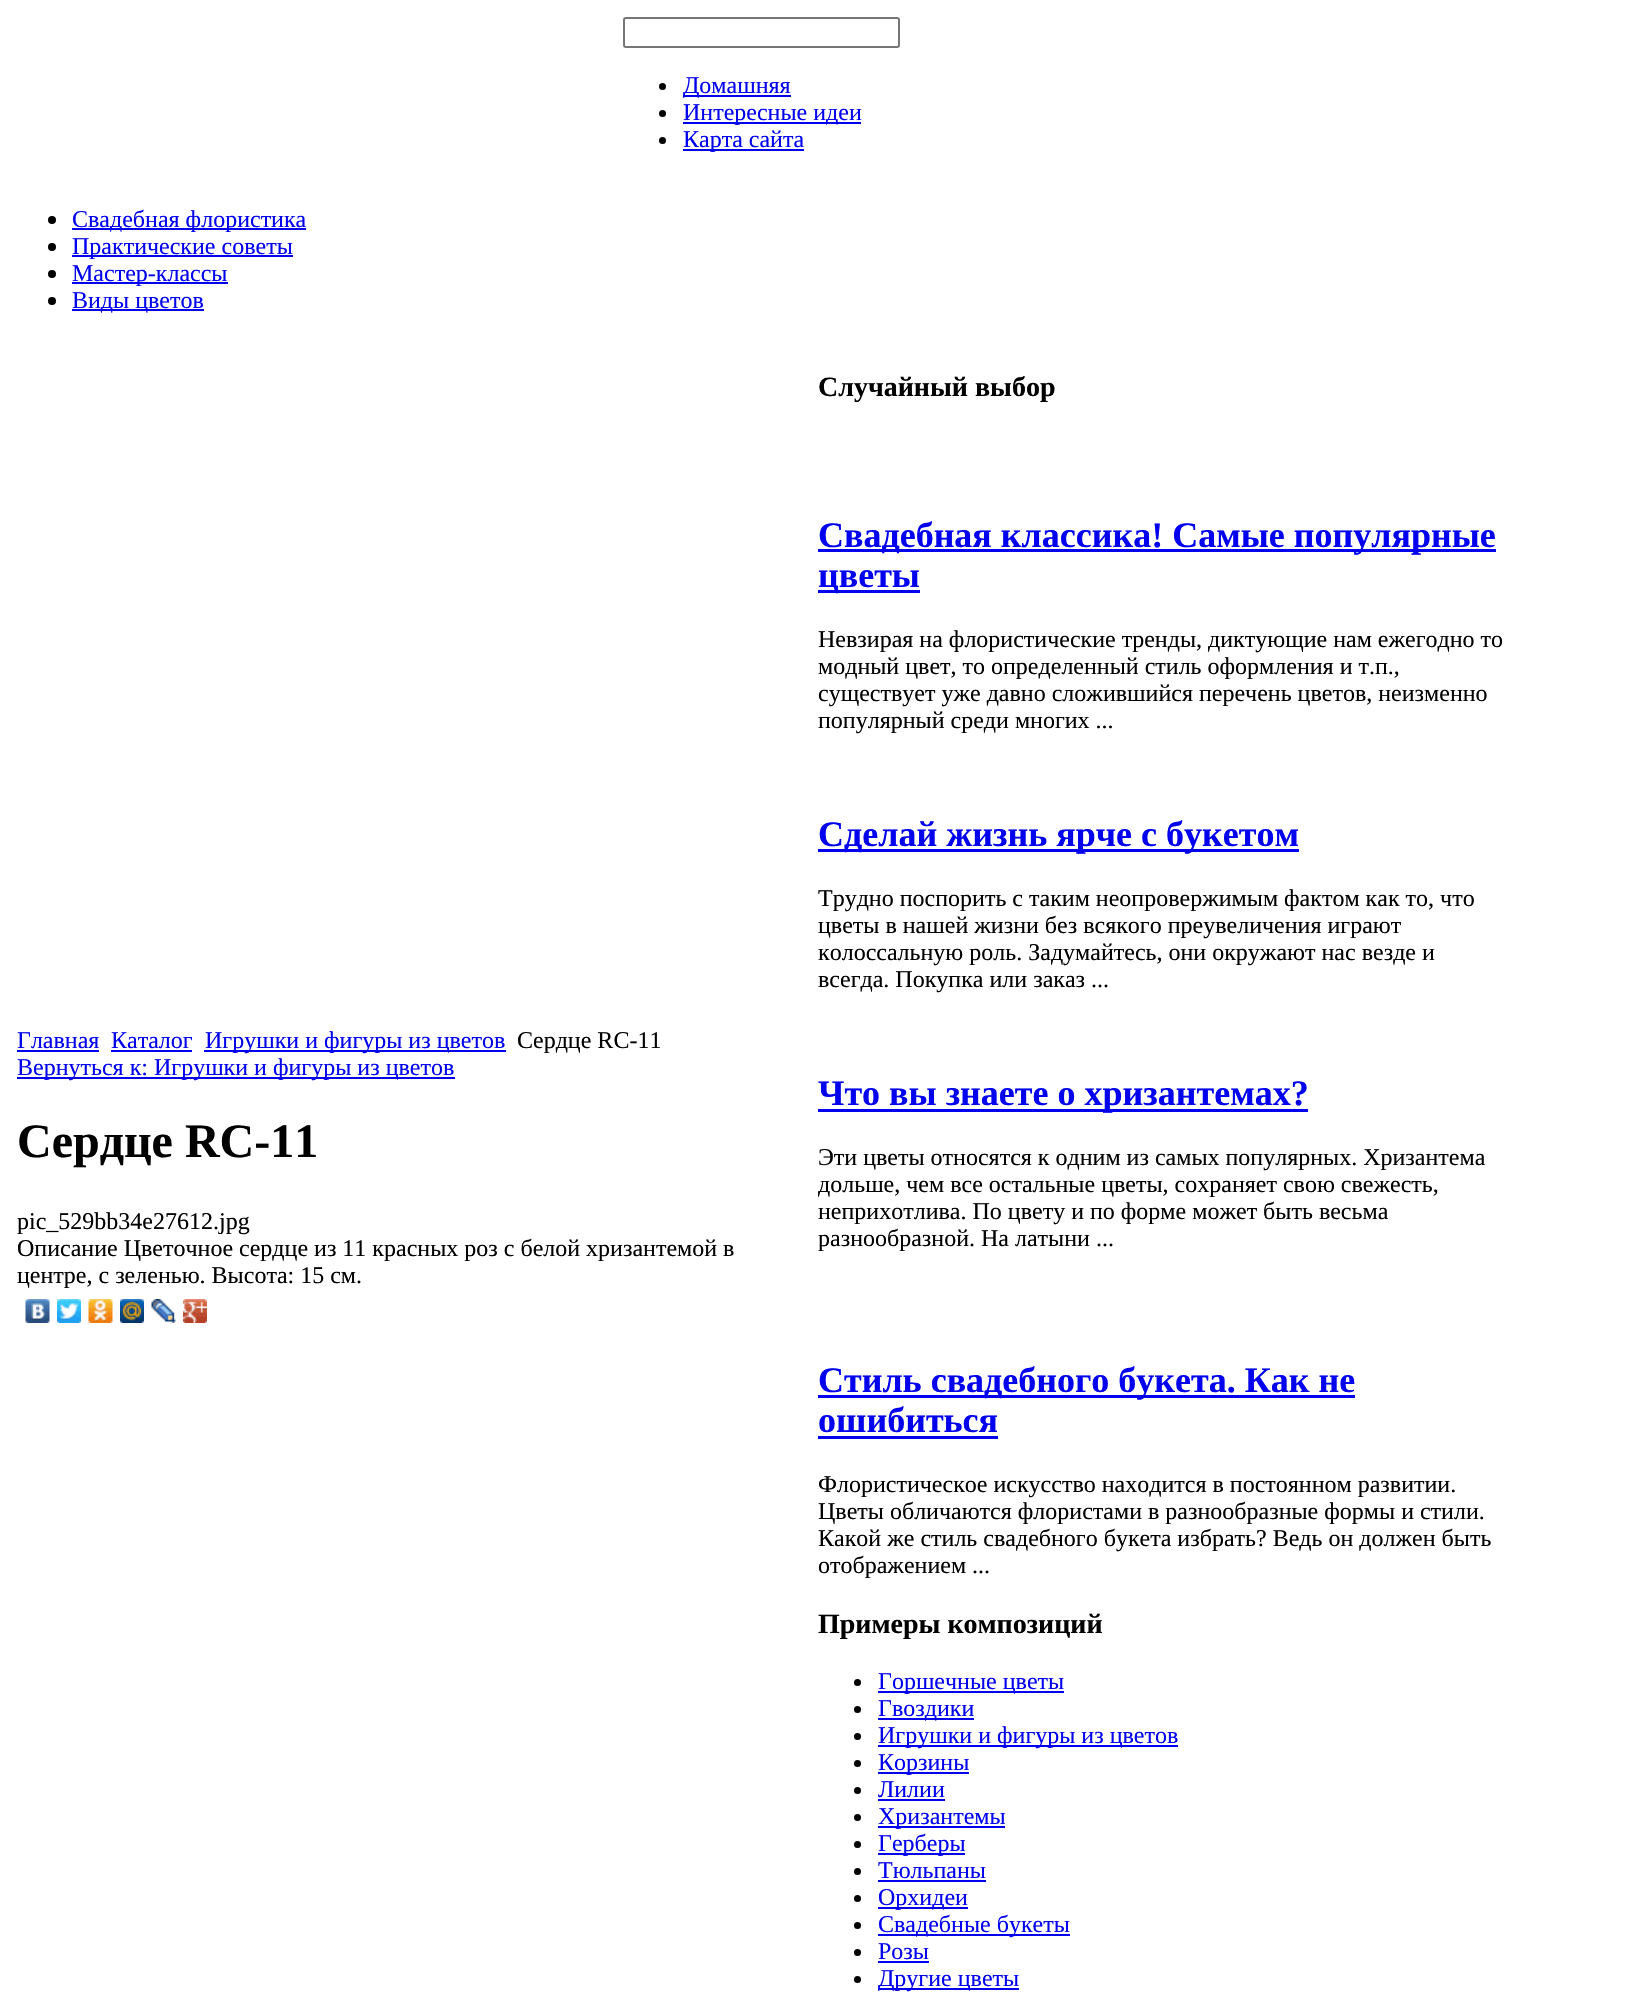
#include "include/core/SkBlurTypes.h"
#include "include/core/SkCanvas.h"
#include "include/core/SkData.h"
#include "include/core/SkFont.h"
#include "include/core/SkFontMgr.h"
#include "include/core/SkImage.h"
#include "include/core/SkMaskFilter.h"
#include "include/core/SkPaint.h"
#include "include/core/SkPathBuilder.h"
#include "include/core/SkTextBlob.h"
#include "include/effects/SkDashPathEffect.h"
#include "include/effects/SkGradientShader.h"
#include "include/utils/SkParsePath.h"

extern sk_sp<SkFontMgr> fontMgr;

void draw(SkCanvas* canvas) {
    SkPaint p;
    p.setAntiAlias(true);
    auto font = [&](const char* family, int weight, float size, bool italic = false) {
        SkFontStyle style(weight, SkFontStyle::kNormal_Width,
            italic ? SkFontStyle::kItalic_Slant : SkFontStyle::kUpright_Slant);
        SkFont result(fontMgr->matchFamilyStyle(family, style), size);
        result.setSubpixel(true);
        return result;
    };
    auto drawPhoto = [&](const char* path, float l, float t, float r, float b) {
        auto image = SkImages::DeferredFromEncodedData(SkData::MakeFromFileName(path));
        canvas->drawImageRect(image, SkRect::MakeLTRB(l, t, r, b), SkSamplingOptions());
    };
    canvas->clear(0xFFFFFFFF);
    p.setStyle(SkPaint::kStroke_Style);
    p.setStrokeWidth(2);
    p.setColor(0xFF767676);
    canvas->drawRoundRect(SkRect::MakeLTRB(624, 18, 899, 47), 2, 2, p);
    p.setStyle(SkPaint::kFill_Style);
    p.setColor(0xFF000000);
    canvas->drawCircle(662.5f, 86.5f, 3.5f, p);
    p.setColor(0xFF0000EE);
    canvas->drawRect(SkRect::MakeLTRB(683, 95, 791, 97), p);
    auto font1 = font("Liberation Serif", 400, 24);
    canvas->drawString("Домашняя", 683, 93, font1, p);
    p.setColor(0xFF000000);
    canvas->drawCircle(662.5f, 113.5f, 3.5f, p);
    p.setColor(0xFF0000EE);
    canvas->drawRect(SkRect::MakeLTRB(683, 122, 861, 124), p);
    canvas->drawString("Интересные идеи", 683, 120, font1, p);
    p.setColor(0xFF000000);
    canvas->drawCircle(662.5f, 140.5f, 3.5f, p);
    p.setColor(0xFF0000EE);
    canvas->drawRect(SkRect::MakeLTRB(683, 149, 804, 151), p);
    canvas->drawString("Карта сайта", 683, 147, font1, p);
    p.setColor(0xFF000000);
    canvas->drawCircle(52, 220, 4, p);
    p.setColor(0xFF0000EE);
    canvas->drawRect(SkRect::MakeLTRB(72, 228, 306, 230), p);
    canvas->drawString("Свадебная флористика", 72, 227, font1, p);
    p.setColor(0xFF000000);
    canvas->drawCircle(52, 247, 4, p);
    p.setColor(0xFF0000EE);
    canvas->drawRect(SkRect::MakeLTRB(72, 255, 293, 257), p);
    canvas->drawString("Практические советы", 72, 254, font1, p);
    p.setColor(0xFF000000);
    canvas->drawCircle(52, 274, 4, p);
    p.setColor(0xFF0000EE);
    canvas->drawRect(SkRect::MakeLTRB(72, 282, 228, 284), p);
    canvas->drawString("Мастер-классы", 72, 281, font1, p);
    p.setColor(0xFF000000);
    canvas->drawCircle(52, 301, 4, p);
    p.setColor(0xFF0000EE);
    canvas->drawRect(SkRect::MakeLTRB(72, 309, 204, 311), p);
    canvas->drawString("Виды цветов", 72, 308, font1, p);
    canvas->drawString("Главная", 17, 1048, font1, p);
    canvas->drawRect(SkRect::MakeLTRB(17, 1050, 99, 1052), p);
    canvas->drawString("Каталог", 111, 1048, font1, p);
    canvas->drawRect(SkRect::MakeLTRB(111, 1050, 192, 1052), p);
    canvas->drawRect(SkRect::MakeLTRB(204, 1050, 506, 1052), p);
    canvas->drawString("Игрушки и фигуры из цветов", 205, 1048, font1, p);
    p.setColor(0xFF000000);
    canvas->drawString("Сердце RC-11", 517, 1048, font1, p);
    p.setColor(0xFF0000EE);
    canvas->drawRect(SkRect::MakeLTRB(17, 1077, 455, 1079), p);
    canvas->drawString("Вернуться к: Игрушки и фигуры из цветов", 17, 1075, font1, p);
    auto font2 = font("Liberation Serif", 700, 48);
    p.setColor(0xFF000000);
    canvas->drawString("Сердце RC-11", 17, 1157, font2, p);
    {
        const struct { const char* s; float x, y; } items[] = {
            {"pic_529bb34e27612.jpg", 17, 1229},
            {"Описание Цветочное сердце из 11 красных роз с белой хризантемой в", 17, 1256},
            {"центре, с зеленью. Высота: 15 см.", 17, 1283},
        };
        for (auto [s, x, y] : items) {
            canvas->drawString(s, x, y, font1, p);
        }
    }
    drawPhoto("media/1.png", 25, 1299, 50, 1323);
    drawPhoto("media/2.png", 57, 1299, 81, 1323);
    drawPhoto("media/3.png", 88, 1299, 113, 1323);
    drawPhoto("media/4.png", 120, 1299, 144, 1323);
    drawPhoto("media/5.png", 151, 1299, 176, 1323);
    drawPhoto("media/6.png", 183, 1299, 207, 1323);
    auto font3 = font("Liberation Serif", 700, 28);
    canvas->drawString("Случайный выбор", 818, 396, font3, p);
    p.setColor(0xFF0000EE);
    canvas->drawRect(SkRect::MakeLTRB(818, 549, 1496, 552), p);
    auto font4 = font("Liberation Serif", 700, 36);
    canvas->drawString("Свадебная классика! Самые популярные", 818, 547, font4, p);
    canvas->drawRect(SkRect::MakeLTRB(818, 590, 920, 593), p);
    canvas->drawString("цветы", 818, 587, font4, p);
    p.setColor(0xFF000000);
    {
        const struct { const char* s; float x, y; } items[] = {
            {"Невзирая на флористические тренды, диктующие нам ежегодно то", 818, 647},
            {"модный цвет, то определенный стиль оформления и т.п.,", 818, 674},
            {"существует уже давно сложившийся перечень цветов, неизменно", 818, 701},
            {"популярный среди многих ...", 818, 728},
        };
        for (auto [s, x, y] : items) {
            canvas->drawString(s, x, y, font1, p);
        }
    }
    p.setColor(0xFF0000EE);
    canvas->drawRect(SkRect::MakeLTRB(818, 849, 1299, 852), p);
    canvas->drawString("Сделай жизнь ярче с букетом", 818, 846, font4, p);
    p.setColor(0xFF000000);
    {
        const struct { const char* s; float x, y; } items[] = {
            {"Трудно поспорить с таким неопровержимым фактом как то, что", 818, 906},
            {"цветы в нашей жизни без всякого преувеличения играют", 818, 933},
            {"колоссальную роль. Задумайтесь, они окружают нас везде и", 818, 960},
            {"всегда. Покупка или заказ ...", 818, 987},
        };
        for (auto [s, x, y] : items) {
            canvas->drawString(s, x, y, font1, p);
        }
    }
    p.setColor(0xFF0000EE);
    canvas->drawRect(SkRect::MakeLTRB(818, 1109, 1308, 1112), p);
    canvas->drawString("Что вы знаете о хризантемах?", 818, 1105, font4, p);
    p.setColor(0xFF000000);
    {
        const struct { const char* s; float x, y; } items[] = {
            {"Эти цветы относятся к одним из самых популярных. Хризантема", 818, 1165},
            {"дольше, чем все остальные цветы, сохраняет свою свежесть,", 818, 1192},
            {"неприхотлива. По цвету и по форме может быть весьма", 818, 1219},
            {"разнообразной. На латыни ...", 818, 1246},
        };
        for (auto [s, x, y] : items) {
            canvas->drawString(s, x, y, font1, p);
        }
    }
    p.setColor(0xFF0000EE);
    canvas->drawRect(SkRect::MakeLTRB(818, 1395, 1355, 1398), p);
    canvas->drawString("Стиль свадебного букета. Как не", 818, 1392, font4, p);
    canvas->drawString("ошибиться", 818, 1432, font4, p);
    canvas->drawRect(SkRect::MakeLTRB(818, 1436, 998, 1439), p);
    p.setColor(0xFF000000);
    {
        const struct { const char* s; float x, y; } items[] = {
            {"Флористическое искусство находится в постоянном развитии.", 818, 1492},
            {"Цветы обличаются флористами в разнообразные формы и стили.", 818, 1519},
            {"Какой же стиль свадебного букета избрать? Ведь он должен быть", 818, 1546},
            {"отображением ...", 818, 1573},
        };
        for (auto [s, x, y] : items) {
            canvas->drawString(s, x, y, font1, p);
        }
    }
    canvas->drawString("Примеры композиций", 818, 1633, font3, p);
    canvas->drawCircle(857.5f, 1682.5f, 3.5f, p);
    p.setColor(0xFF0000EE);
    canvas->drawRect(SkRect::MakeLTRB(878, 1691, 1064, 1693), p);
    canvas->drawString("Горшечные цветы", 878, 1689, font1, p);
    p.setColor(0xFF000000);
    canvas->drawCircle(857.5f, 1709.5f, 3.5f, p);
    p.setColor(0xFF0000EE);
    canvas->drawRect(SkRect::MakeLTRB(878, 1718, 974, 1720), p);
    canvas->drawString("Гвоздики", 878, 1716, font1, p);
    p.setColor(0xFF000000);
    canvas->drawCircle(857.5f, 1736.5f, 3.5f, p);
    p.setColor(0xFF0000EE);
    canvas->drawRect(SkRect::MakeLTRB(878, 1745, 1178, 1747), p);
    canvas->drawString("Игрушки и фигуры из цветов", 878, 1743, font1, p);
    p.setColor(0xFF000000);
    canvas->drawCircle(857.5f, 1763.5f, 3.5f, p);
    p.setColor(0xFF0000EE);
    canvas->drawRect(SkRect::MakeLTRB(878, 1772, 969, 1774), p);
    canvas->drawString("Корзины", 878, 1770, font1, p);
    p.setColor(0xFF000000);
    canvas->drawCircle(857.5f, 1790.5f, 3.5f, p);
    p.setColor(0xFF0000EE);
    canvas->drawString("Лилии", 878, 1797, font1, p);
    canvas->drawRect(SkRect::MakeLTRB(878, 1799, 945, 1801), p);
    p.setColor(0xFF000000);
    canvas->drawCircle(857.5f, 1817.5f, 3.5f, p);
    p.setColor(0xFF0000EE);
    canvas->drawRect(SkRect::MakeLTRB(878, 1826, 1005, 1828), p);
    canvas->drawString("Хризантемы", 878, 1824, font1, p);
    p.setColor(0xFF000000);
    canvas->drawCircle(857.5f, 1844.5f, 3.5f, p);
    p.setColor(0xFF0000EE);
    canvas->drawRect(SkRect::MakeLTRB(878, 1853, 965, 1855), p);
    canvas->drawString("Герберы", 878, 1851, font1, p);
    p.setColor(0xFF000000);
    canvas->drawCircle(857.5f, 1871.5f, 3.5f, p);
    p.setColor(0xFF0000EE);
    canvas->drawString("Тюльпаны", 878, 1878, font1, p);
    canvas->drawRect(SkRect::MakeLTRB(878, 1880, 986, 1882), p);
    p.setColor(0xFF000000);
    canvas->drawCircle(857.5f, 1898.5f, 3.5f, p);
    p.setColor(0xFF0000EE);
    canvas->drawRect(SkRect::MakeLTRB(878, 1907, 968, 1909), p);
    canvas->drawString("Орхидеи", 878, 1905, font1, p);
    p.setColor(0xFF000000);
    canvas->drawCircle(857.5f, 1925.5f, 3.5f, p);
    p.setColor(0xFF0000EE);
    canvas->drawRect(SkRect::MakeLTRB(878, 1934, 1070, 1936), p);
    canvas->drawString("Свадебные букеты", 878, 1932, font1, p);
    p.setColor(0xFF000000);
    canvas->drawCircle(857.5f, 1952.5f, 3.5f, p);
    p.setColor(0xFF0000EE);
    canvas->drawString("Розы", 878, 1959, font1, p);
    canvas->drawRect(SkRect::MakeLTRB(878, 1961, 929, 1963), p);
    p.setColor(0xFF000000);
    canvas->drawCircle(857.5f, 1979.5f, 3.5f, p);
    p.setColor(0xFF0000EE);
    canvas->drawRect(SkRect::MakeLTRB(878, 1988, 1019, 1990), p);
    canvas->drawString("Другие цветы", 878, 1986, font1, p);
}
